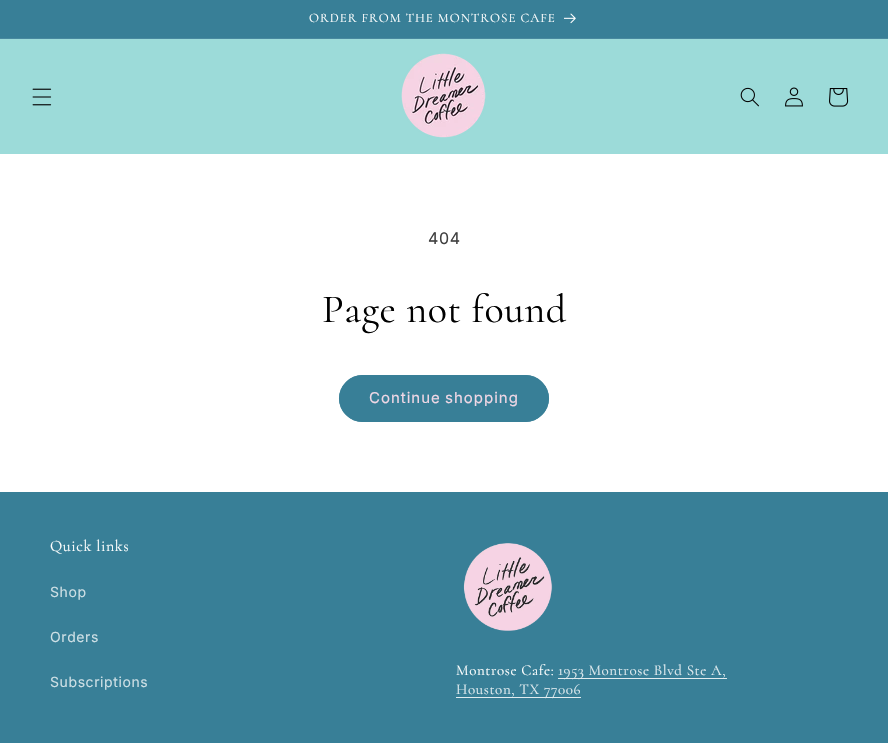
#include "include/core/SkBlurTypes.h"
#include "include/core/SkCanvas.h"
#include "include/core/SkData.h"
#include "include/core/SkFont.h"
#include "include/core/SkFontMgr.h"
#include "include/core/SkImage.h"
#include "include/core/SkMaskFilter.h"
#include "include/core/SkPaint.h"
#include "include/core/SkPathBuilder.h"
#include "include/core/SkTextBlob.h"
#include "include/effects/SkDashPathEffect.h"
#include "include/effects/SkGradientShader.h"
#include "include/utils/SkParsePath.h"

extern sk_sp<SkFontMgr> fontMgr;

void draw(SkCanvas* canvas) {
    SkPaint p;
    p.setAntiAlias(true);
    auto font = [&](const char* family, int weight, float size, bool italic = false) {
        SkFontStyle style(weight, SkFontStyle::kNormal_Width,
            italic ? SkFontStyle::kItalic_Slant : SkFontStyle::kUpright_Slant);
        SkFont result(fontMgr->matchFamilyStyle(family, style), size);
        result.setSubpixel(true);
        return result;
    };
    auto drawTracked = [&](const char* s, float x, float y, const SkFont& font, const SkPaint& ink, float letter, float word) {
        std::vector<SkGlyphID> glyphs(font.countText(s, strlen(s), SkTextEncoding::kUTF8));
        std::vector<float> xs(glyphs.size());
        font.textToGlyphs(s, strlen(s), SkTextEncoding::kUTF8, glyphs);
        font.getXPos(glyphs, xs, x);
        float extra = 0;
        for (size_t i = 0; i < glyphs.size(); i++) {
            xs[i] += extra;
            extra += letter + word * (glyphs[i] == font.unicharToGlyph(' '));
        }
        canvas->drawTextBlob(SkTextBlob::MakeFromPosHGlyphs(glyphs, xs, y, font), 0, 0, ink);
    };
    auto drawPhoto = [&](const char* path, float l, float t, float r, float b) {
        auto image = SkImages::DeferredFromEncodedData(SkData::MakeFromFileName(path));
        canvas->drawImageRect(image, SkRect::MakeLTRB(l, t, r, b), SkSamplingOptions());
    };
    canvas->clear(0xFFFFFFFF);
    p.setColor(0xFF387F97);
    canvas->drawRect(SkRect::MakeLTRB(0, 0, 888, 38), p);
    p.setColor(0xFF48899F);
    canvas->drawRect(SkRect::MakeLTRB(0, 38, 888, 39), p);
    auto font1 = font("Cormorant", 400, 13);
    p.setColor(0xFFFFFFFF);
    drawTracked("ORDER FROM THE MONTROSE CAFE", 309, 22, font1, p, 1, 0);
    drawPhoto("media/1.png", 564, 13, 576, 24);
    p.setColor(0xFF9CDBD9);
    canvas->drawRect(SkRect::MakeLTRB(0, 39, 888, 154), p);
    drawPhoto("media/2.png", 32, 88, 52, 106);
    drawPhoto("media/3.png", 401, 53, 486, 138);
    drawPhoto("media/4.png", 740, 87, 759, 107);
    drawPhoto("media/5.png", 785, 87, 803, 107);
    drawPhoto("media/6.png", 829, 88, 849, 107);
    auto font2 = font("Inter", 400, 16);
    p.setColor(0xFF404040);
    drawTracked("404", 428, 244, font2, p, 0.6f, 0);
    auto font3 = font("Cormorant", 400, 40);
    p.setColor(0xFF000000);
    drawTracked("Page not found", 322, 322, font3, p, 0.6f, 0);
    p.setColor(0xFF387F97);
    canvas->drawRoundRect(SkRect::MakeLTRB(339, 375, 549, 422), 23.5f, 23.5f, p);
    p.setStyle(SkPaint::kStroke_Style);
    p.setStrokeWidth(1);
    canvas->drawRoundRect(SkRect::MakeLTRB(339.5f, 375.5f, 548.5f, 421.5f), 23, 23, p);
    auto font4 = font("Inter", 400, 15);
    p.setStyle(SkPaint::kFill_Style);
    p.setColor(0xFFEFD7E5);
    drawTracked("Continue shopping", 369, 403, font4, p, 1, -1);
    p.setColor(0xFF387F97);
    canvas->drawRect(SkRect::MakeLTRB(0, 492, 888, 743), p);
    auto font5 = font("Cormorant", 400, 16);
    p.setColor(0xFFFFFFFF);
    drawTracked("Quick links", 50, 551, font5, p, 0.6f, 0);
    auto font6 = font("Inter", 400, 14);
    p.setColor(0xFFCDDFE5);
    {
        const struct { const char* s; float x, y; } items[] = {
            {"Shop", 50, 597},
            {"Orders", 50, 642},
            {"Subscriptions", 50, 687},
        };
        for (auto [s, x, y] : items) {
            drawTracked(s, x, y, font6, p, 0.6f, 0);
        }
    }
    drawPhoto("media/7.png", 463, 543, 553, 631);
    auto font7 = font("Cormorant", 400, 15);
    p.setColor(0xFFFFFFFF);
    drawTracked("Montrose Cafe:", 456, 675, font7, p, 0.6f, 0);
    p.setColor(0xFFE1ECEF);
    canvas->drawRect(SkRect::MakeLTRB(558, 678, 727, 679), p);
    p.setColor(0xFFE1ECF0);
    drawTracked("1953 Montrose Blvd Ste A,", 558, 675, font7, p, 0.6f, 0);
    p.setColor(0xFFE1ECEF);
    canvas->drawRect(SkRect::MakeLTRB(456, 697, 581, 698), p);
    p.setColor(0xFFE1ECF0);
    drawTracked("Houston, TX 77006", 456, 694, font7, p, 0.6f, 0);
}
